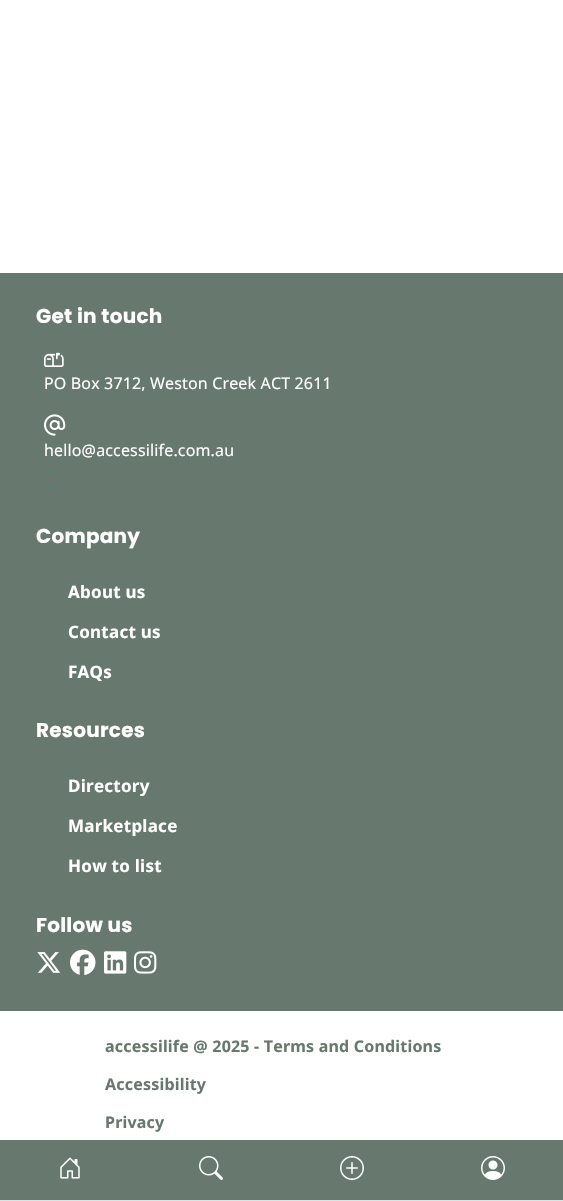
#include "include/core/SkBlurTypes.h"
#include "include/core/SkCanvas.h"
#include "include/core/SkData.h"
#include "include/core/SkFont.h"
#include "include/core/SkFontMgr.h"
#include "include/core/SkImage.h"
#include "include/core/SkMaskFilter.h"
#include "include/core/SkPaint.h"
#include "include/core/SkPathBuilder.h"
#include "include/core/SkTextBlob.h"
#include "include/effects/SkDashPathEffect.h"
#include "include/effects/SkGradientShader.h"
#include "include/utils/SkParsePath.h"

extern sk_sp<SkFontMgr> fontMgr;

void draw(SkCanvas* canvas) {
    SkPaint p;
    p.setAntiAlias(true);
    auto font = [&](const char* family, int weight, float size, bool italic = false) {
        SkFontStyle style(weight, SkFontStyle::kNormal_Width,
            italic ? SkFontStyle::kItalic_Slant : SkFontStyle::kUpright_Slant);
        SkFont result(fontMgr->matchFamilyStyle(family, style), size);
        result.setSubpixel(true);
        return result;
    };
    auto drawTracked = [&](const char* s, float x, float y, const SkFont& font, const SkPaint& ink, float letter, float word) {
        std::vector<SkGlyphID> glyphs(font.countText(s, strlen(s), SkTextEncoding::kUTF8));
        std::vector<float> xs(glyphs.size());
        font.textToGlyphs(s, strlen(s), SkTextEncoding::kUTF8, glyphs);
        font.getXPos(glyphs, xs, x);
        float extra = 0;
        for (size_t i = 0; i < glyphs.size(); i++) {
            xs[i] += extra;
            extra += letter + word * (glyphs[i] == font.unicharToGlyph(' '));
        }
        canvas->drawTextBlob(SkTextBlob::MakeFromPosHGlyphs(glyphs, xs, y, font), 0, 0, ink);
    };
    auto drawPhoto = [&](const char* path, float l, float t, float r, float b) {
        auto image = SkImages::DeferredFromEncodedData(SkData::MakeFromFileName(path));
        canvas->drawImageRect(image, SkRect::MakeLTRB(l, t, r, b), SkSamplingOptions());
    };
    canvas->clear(0xFFFFFFFF);
    p.setColor(0xFF67796E);
    canvas->drawRect(SkRect::MakeLTRB(0, 273, 563, 1011), p);
    auto font1 = font("Poppins", 700, 20);
    p.setColor(0xFFFFFFFF);
    drawTracked("Get in touch", 36, 323, font1, p, 0.25f, 0);
    drawPhoto("media/1.png", 44, 352, 64, 367);
    auto font2 = font("Noto Sans", 400, 16);
    drawTracked("PO Box 3712, Weston Creek ACT 2611", 44, 389, font2, p, 0.15f, 0);
    drawPhoto("media/2.png", 44, 414, 66, 436);
    drawTracked("hello@accessilife.com.au", 44, 456, font2, p, 0.15f, 0);
    drawPhoto("media/3.png", 48, 478, 57, 484);
    drawTracked("Company", 36, 543, font1, p, 0.25f, 0);
    auto font3 = font("Noto Sans", 700, 17);
    {
        const struct { const char* s; float x, y; } items[] = {
            {"About us", 68, 598},
            {"Contact us", 68, 638},
            {"FAQs", 68, 678},
        };
        for (auto [s, x, y] : items) {
            drawTracked(s, x, y, font3, p, 0.25f, 0);
        }
    }
    drawTracked("Resources", 36, 737, font1, p, 0.25f, 0);
    {
        const struct { const char* s; float x, y; } items[] = {
            {"Directory", 68, 792},
            {"Marketplace", 68, 832},
            {"How to list", 68, 872},
        };
        for (auto [s, x, y] : items) {
            drawTracked(s, x, y, font3, p, 0.25f, 0);
        }
    }
    drawTracked("Follow us", 36, 932, font1, p, 0.25f, 0);
    drawPhoto("media/4.png", 37, 952, 61, 973);
    drawPhoto("media/5.png", 70, 949, 96, 975);
    drawPhoto("media/6.png", 104, 951, 127, 974);
    drawPhoto("media/7.png", 134, 951, 157, 974);
    auto font4 = font("Noto Sans", 700, 16);
    p.setColor(0xFF67796E);
    {
        const struct { const char* s; float x, y; } items[] = {
            {"accessilife @ 2025 - Terms and Conditions", 105, 1052},
            {"Accessibility", 105, 1090},
            {"Privacy", 105, 1128},
        };
        for (auto [s, x, y] : items) {
            drawTracked(s, x, y, font4, p, 0.2f, 0);
        }
    }
    canvas->drawRect(SkRect::MakeLTRB(0, 1140, 563, 1200), p);
    drawPhoto("media/8.png", 199, 1156, 223, 1180);
    drawPhoto("media/9.png", 340, 1156, 364, 1180);
    drawPhoto("media/10.png", 481, 1156, 505, 1180);
    p.setColor(0xFFDEE2E6);
    canvas->drawRect(SkRect::MakeLTRB(0, 1200, 563, 1201), p);
    drawPhoto("media/11.png", 60, 1157, 80, 1179);
}
